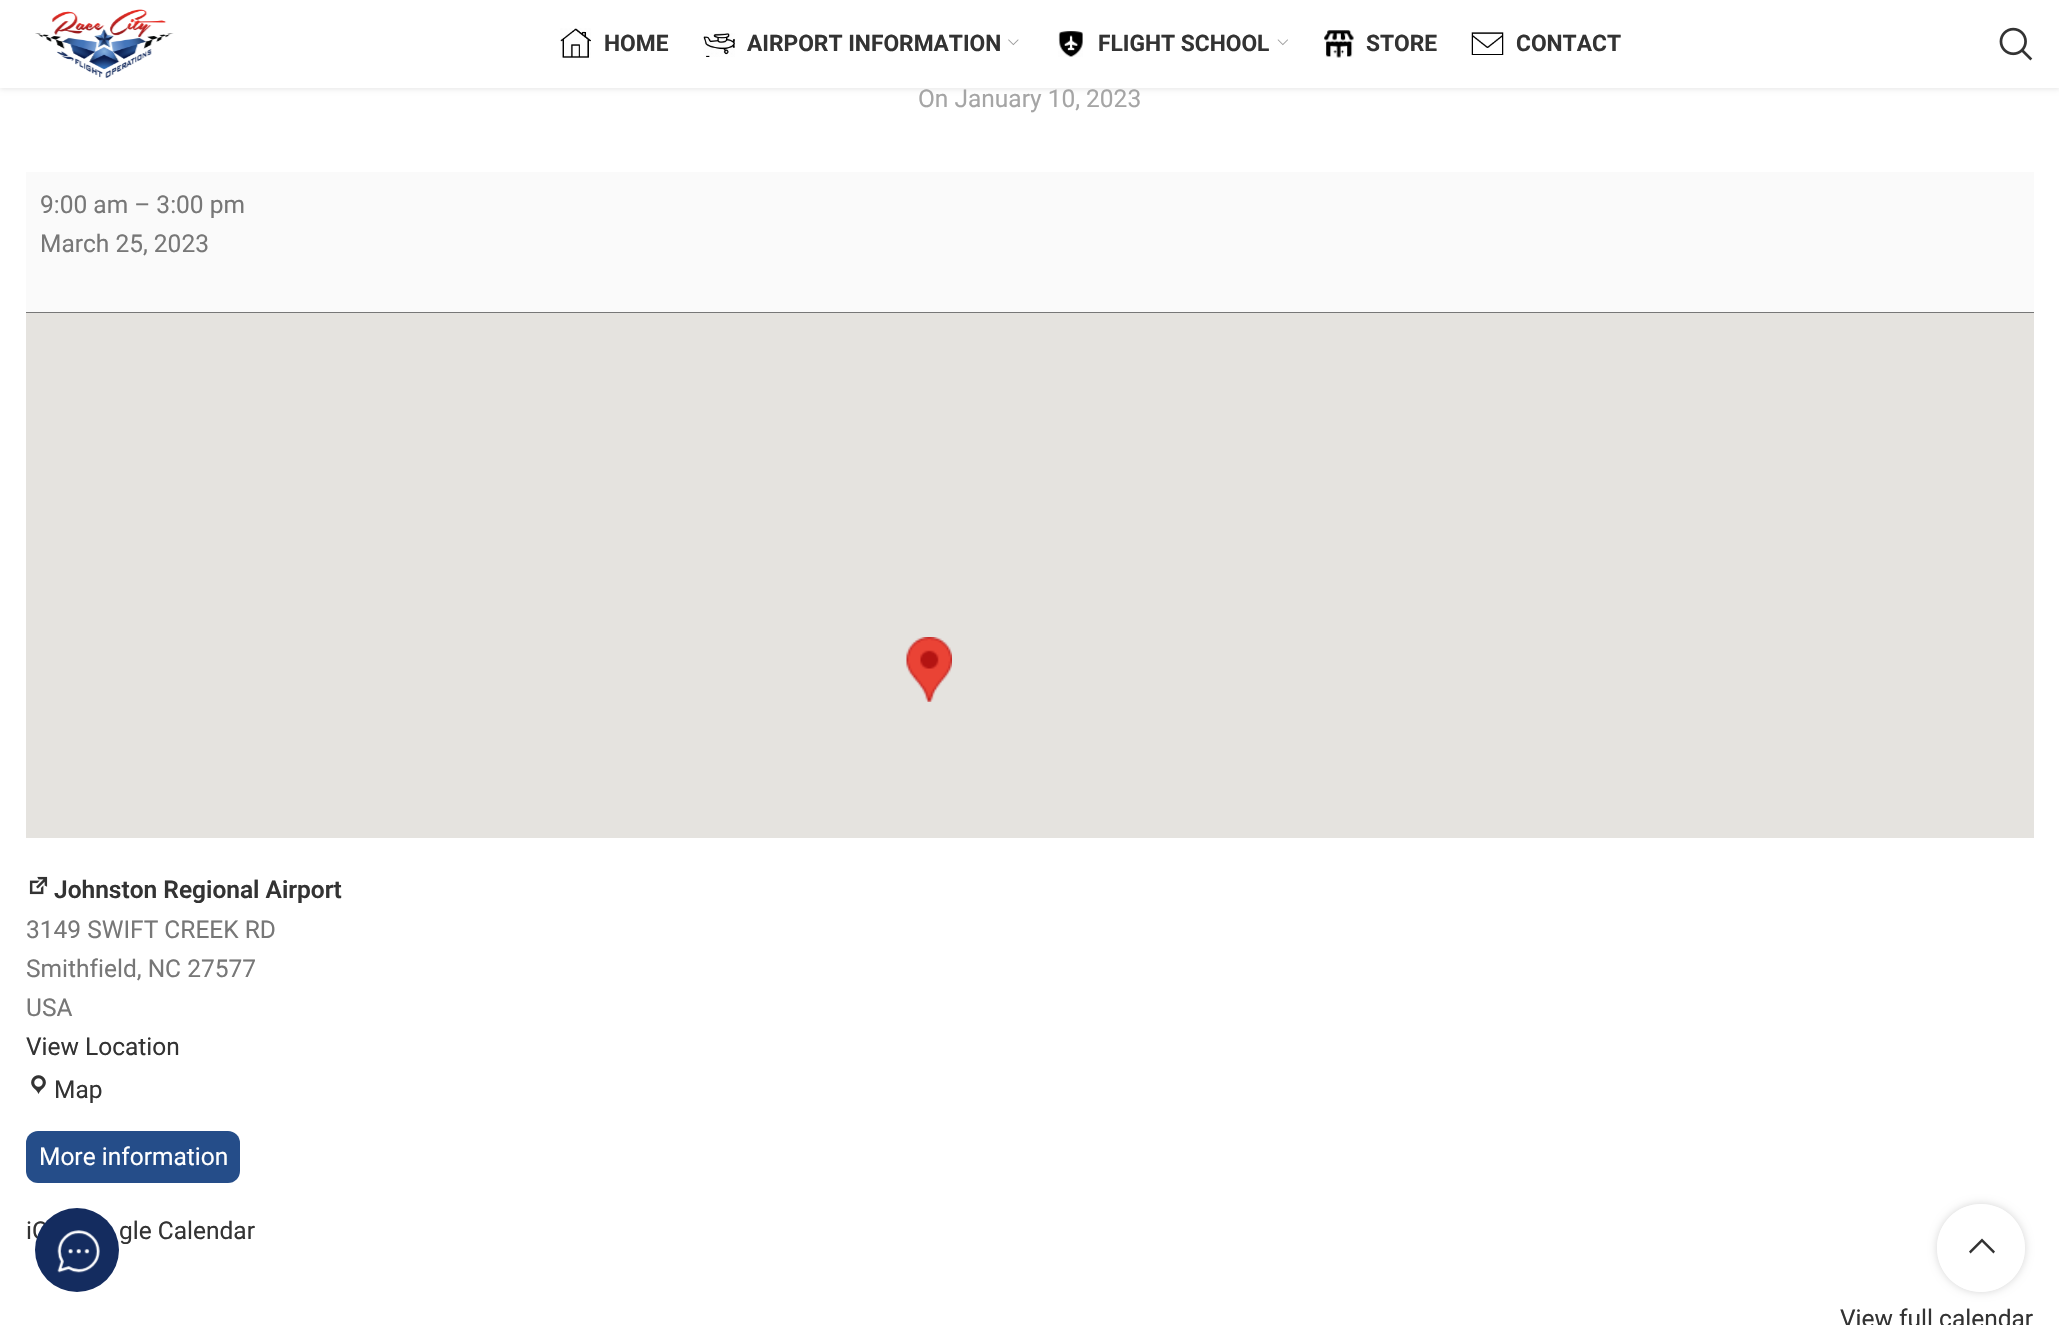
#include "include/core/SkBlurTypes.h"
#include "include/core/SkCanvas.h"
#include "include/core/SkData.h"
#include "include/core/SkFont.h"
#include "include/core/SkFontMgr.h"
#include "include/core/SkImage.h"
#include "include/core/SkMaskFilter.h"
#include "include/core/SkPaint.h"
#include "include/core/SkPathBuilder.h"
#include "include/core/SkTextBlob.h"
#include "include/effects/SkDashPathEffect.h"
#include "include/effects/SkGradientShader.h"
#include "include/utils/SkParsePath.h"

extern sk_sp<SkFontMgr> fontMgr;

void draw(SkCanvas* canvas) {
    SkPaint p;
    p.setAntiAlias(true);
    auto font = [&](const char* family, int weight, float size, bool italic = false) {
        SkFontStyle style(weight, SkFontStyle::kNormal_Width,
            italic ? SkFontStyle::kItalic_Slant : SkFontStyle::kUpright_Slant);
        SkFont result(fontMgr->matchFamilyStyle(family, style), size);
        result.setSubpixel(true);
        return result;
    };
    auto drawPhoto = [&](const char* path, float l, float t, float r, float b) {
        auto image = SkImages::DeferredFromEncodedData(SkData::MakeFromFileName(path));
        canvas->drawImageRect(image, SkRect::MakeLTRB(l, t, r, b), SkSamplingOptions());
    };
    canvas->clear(0xFFFFFFFF);
    p.setColor(0x1A000000);
    p.setMaskFilter(SkMaskFilter::MakeBlur(kNormal_SkBlurStyle, 2.5f));
    canvas->drawRect(SkRect::MakeLTRB(0, 2, 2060, 89), p);
    p.setMaskFilter(nullptr);
    p.setColor(0xFFFFFFFF);
    canvas->drawRect(SkRect::MakeLTRB(0, 0, 2059, 88), p);
    drawPhoto("media/1.png", 35, 9, 174, 78);
    drawPhoto("media/2.png", 560, 28, 591, 58);
    auto font1 = font("Roboto", 700, 22.75f);
    p.setColor(0xFF333333);
    canvas->drawString("HOME", 604, 51, font1, p);
    drawPhoto("media/3.png", 703, 33, 735, 57);
    canvas->drawString("AIRPORT INFORMATION", 747, 51, font1, p);
    drawPhoto("media/4.png", 1008, 39, 1019, 46);
    drawPhoto("media/5.png", 1058, 31, 1083, 57);
    canvas->drawString("FLIGHT SCHOOL", 1098, 51, font1, p);
    drawPhoto("media/6.png", 1277, 39, 1288, 46);
    drawPhoto("media/7.png", 1324, 30, 1354, 58);
    canvas->drawString("STORE", 1366, 51, font1, p);
    drawPhoto("media/8.png", 1471, 32, 1504, 55);
    canvas->drawString("CONTACT", 1516, 51, font1, p);
    drawPhoto("media/9.png", 1999, 27, 2033, 61);
    auto font2 = font("Roboto", 400, 24.5f);
    p.setColor(0xFFA5A5A5);
    canvas->drawString("On January 10, 2023", 918, 107, font2, p);
    p.setColor(0xFFFAFAFA);
    canvas->drawRect(SkRect::MakeLTRB(26, 172, 2034, 312), p);
    p.setColor(0xFF777777);
    canvas->drawRect(SkRect::MakeLTRB(26, 312, 2034, 313), p);
    canvas->drawString("9:00 am – 3:00 pm", 40, 213, font2, p);
    canvas->drawString("March 25, 2023", 40, 252, font2, p);
    p.setColor(0xFFE5E3DF);
    canvas->drawRect(SkRect::MakeLTRB(26, 313, 2034, 838), p);
    drawPhoto("media/10.png", 906, 637, 952, 702);
    drawPhoto("media/11.png", 29, 876, 48, 895);
    auto font3 = font("Roboto", 600, 24.5f);
    p.setColor(0xFF333333);
    canvas->drawString("Johnston Regional Airport", 54, 898, font3, p);
    p.setColor(0xFF777777);
    {
        const struct { const char* s; float x, y; } items[] = {
            {"3149 SWIFT CREEK RD", 26, 938},
            {"Smithfield, NC 27577", 26, 977},
            {"USA", 26, 1016},
        };
        for (auto [s, x, y] : items) {
            canvas->drawString(s, x, y, font2, p);
        }
    }
    p.setColor(0xFF333333);
    canvas->drawString("View Location", 26, 1055, font2, p);
    drawPhoto("media/12.png", 31, 1075, 46, 1094);
    canvas->drawString("Map", 54, 1098, font2, p);
    p.setColor(0xFF254D89);
    canvas->drawRoundRect(SkRect::MakeLTRB(26, 1131, 240, 1183), 12, 12, p);
    p.setColor(0xFFFFFFFF);
    canvas->drawString("More information", 39, 1165, font2, p);
    p.setColor(0xFF333333);
    {
        const struct { const char* s; float x, y; } items[] = {
            {"iC", 26, 1239},
            {"gle Calendar", 119, 1239},
            {"View full calendar", 1840, 1327},
        };
        for (auto [s, x, y] : items) {
            canvas->drawString(s, x, y, font2, p);
        }
    }
    p.setColor(0xFF142C5F);
    canvas->drawCircle(77, 1250, 42, p);
    drawPhoto("media/13.png", 57, 1230, 100, 1273);
    canvas->save();
    canvas->clipPath(SkPathBuilder(SkPathFillType::kEvenOdd).moveTo(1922, 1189).lineTo(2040, 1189).lineTo(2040, 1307).lineTo(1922, 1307).close().moveTo(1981, 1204).cubicTo(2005.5f, 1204, 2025, 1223.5f, 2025, 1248).cubicTo(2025, 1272.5f, 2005.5f, 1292, 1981, 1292).cubicTo(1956.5f, 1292, 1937, 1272.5f, 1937, 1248).cubicTo(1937, 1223.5f, 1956.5f, 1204, 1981, 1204).close().detach(), true);
    p.setColor(0x2B000000);
    p.setMaskFilter(SkMaskFilter::MakeBlur(kNormal_SkBlurStyle, 4.5f));
    canvas->drawRoundRect(SkRect::MakeLTRB(1937, 1204, 2025, 1292), 44, 44, p);
    p.setMaskFilter(nullptr);
    canvas->restore();
    p.setColor(0xE6FFFFFF);
    canvas->drawCircle(1981, 1248, 44, p);
    p.setColor(0xFF333333);
    canvas->drawPath(SkPathBuilder().moveTo(1993.5f, 1253.5f).lineTo(1995, 1251.5f).lineTo(1982, 1238.5f).lineTo(1969, 1251.5f).lineTo(1970.5f, 1253.5f).lineTo(1982, 1242).close().detach(), p);
}
